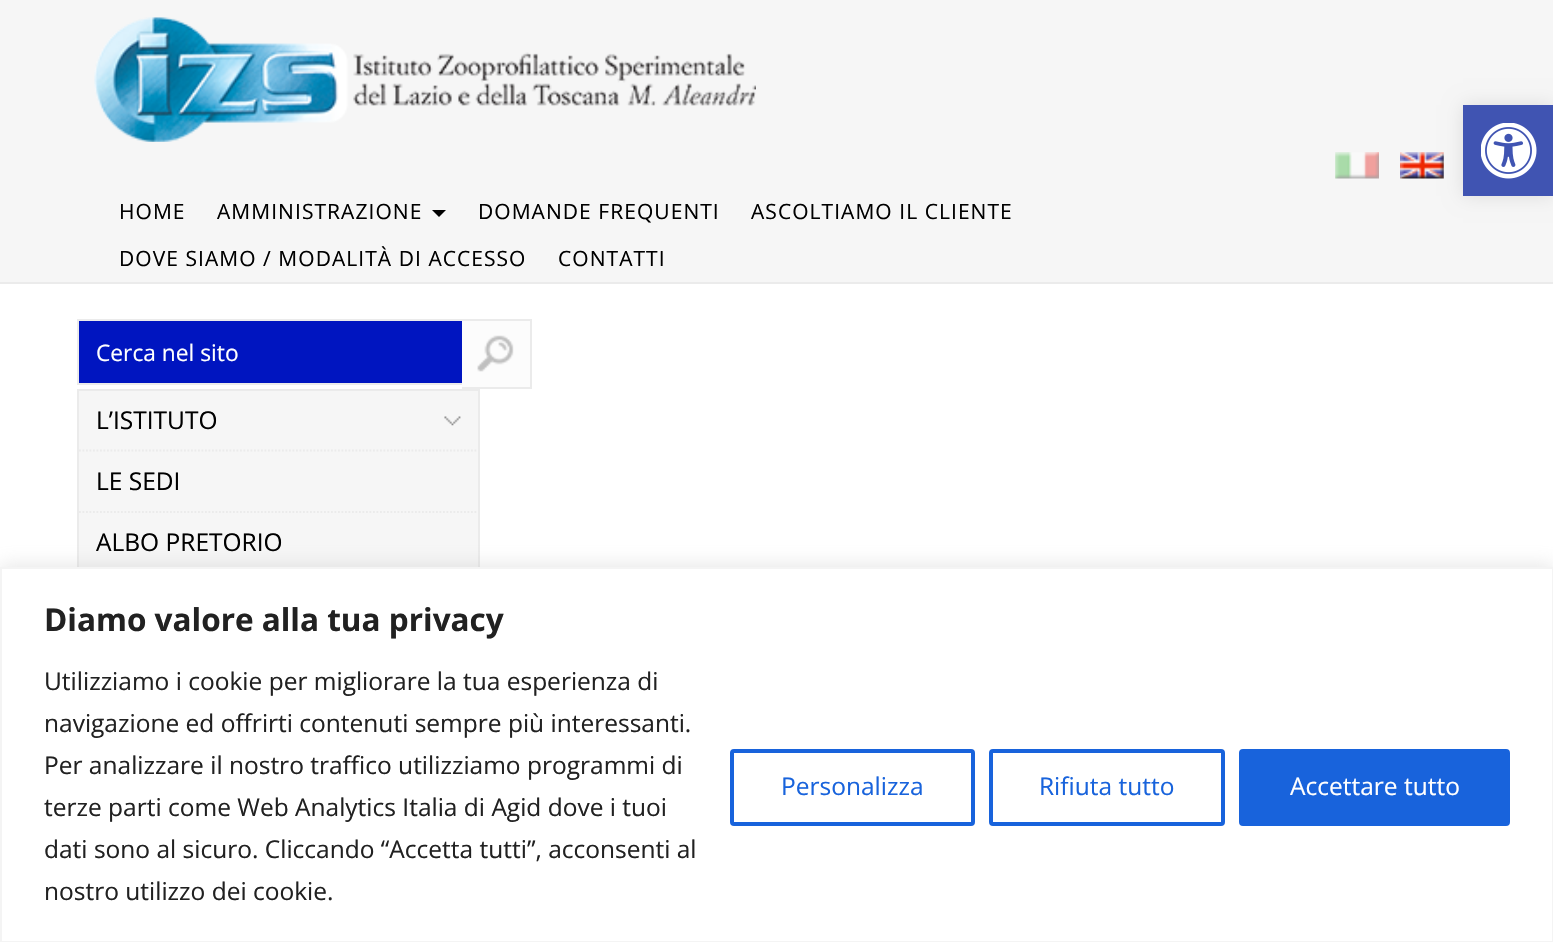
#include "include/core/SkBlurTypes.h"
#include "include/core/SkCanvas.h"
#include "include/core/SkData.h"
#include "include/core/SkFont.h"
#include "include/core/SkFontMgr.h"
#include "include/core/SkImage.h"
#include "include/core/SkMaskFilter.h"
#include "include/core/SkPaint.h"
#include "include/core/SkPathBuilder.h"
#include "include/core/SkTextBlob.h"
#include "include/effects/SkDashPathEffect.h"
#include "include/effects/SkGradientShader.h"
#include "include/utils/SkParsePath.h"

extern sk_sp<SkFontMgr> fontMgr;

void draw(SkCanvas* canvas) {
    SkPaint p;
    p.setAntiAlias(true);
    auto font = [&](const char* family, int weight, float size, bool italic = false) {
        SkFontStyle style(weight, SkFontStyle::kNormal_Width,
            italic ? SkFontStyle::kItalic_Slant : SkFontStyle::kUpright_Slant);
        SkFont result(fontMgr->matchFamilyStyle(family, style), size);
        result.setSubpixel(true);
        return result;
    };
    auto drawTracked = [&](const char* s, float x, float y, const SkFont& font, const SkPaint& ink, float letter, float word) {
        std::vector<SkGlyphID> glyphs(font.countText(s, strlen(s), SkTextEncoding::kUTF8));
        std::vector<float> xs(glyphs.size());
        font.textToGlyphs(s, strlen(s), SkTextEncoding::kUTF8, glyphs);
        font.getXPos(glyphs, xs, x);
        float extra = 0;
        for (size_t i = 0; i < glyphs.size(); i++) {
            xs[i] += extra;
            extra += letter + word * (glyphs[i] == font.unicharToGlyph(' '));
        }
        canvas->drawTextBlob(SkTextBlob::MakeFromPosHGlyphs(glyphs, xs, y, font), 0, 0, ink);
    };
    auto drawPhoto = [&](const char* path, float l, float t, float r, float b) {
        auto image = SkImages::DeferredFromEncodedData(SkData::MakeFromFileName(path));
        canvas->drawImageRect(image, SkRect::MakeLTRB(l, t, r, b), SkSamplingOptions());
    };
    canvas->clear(0xFFFFFFFF);
    p.setColor(0xFFF6F6F6);
    canvas->drawRect(SkRect::MakeLTRB(0, 0, 1553, 282), p);
    drawPhoto("media/4.png", 1400, 152, 1444, 179);
    p.setColor(0x1A000000);
    p.setMaskFilter(SkMaskFilter::MakeBlur(kNormal_SkBlurStyle, 9));
    canvas->drawRect(SkRect::MakeLTRB(1463, 105, 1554, 196), p);
    p.setMaskFilter(nullptr);
    p.setColor(0xFF4054B2);
    canvas->drawRect(SkRect::MakeLTRB(1463, 105, 1553, 196), p);
    drawPhoto("media/1.png", 1481, 123, 1537, 179);
    p.setColor(0xFFEBEBEB);
    canvas->drawRect(SkRect::MakeLTRB(0, 282, 1553, 284), p);
    drawPhoto("media/2.png", 94, 17, 756, 142);
    drawPhoto("media/3.png", 1335, 152, 1379, 179);
    auto font1 = font("Open Sans", 400, 21);
    p.setColor(0xFF000000);
    drawTracked("HOME", 119, 219, font1, p, 1.05f, 0);
    drawTracked("AMMINISTRAZIONE", 217, 219, font1, p, 1.05f, 0);
    canvas->drawPath(SkPathBuilder().moveTo(432, 210).lineTo(446, 210).lineTo(439, 217).close().detach(), p);
    {
        const struct { const char* s; float x, y; } items[] = {
            {"DOMANDE FREQUENTI", 478, 219},
            {"ASCOLTIAMO IL CLIENTE", 751, 219},
            {"DOVE SIAMO / MODALITÀ DI ACCESSO", 119, 266},
            {"CONTATTI", 558, 266},
        };
        for (auto [s, x, y] : items) {
            drawTracked(s, x, y, font1, p, 1.05f, 0);
        }
    }
    p.setColor(0xFF0015C0);
    canvas->drawRect(SkRect::MakeLTRB(79, 321, 462, 383), p);
    p.setStyle(SkPaint::kStroke_Style);
    p.setStrokeWidth(2);
    p.setColor(0xFFEBEBEB);
    canvas->drawRect(SkRect::MakeLTRB(78, 320, 503, 384), p);
    auto font2 = font("Open Sans", 400, 22.75f);
    p.setStyle(SkPaint::kFill_Style);
    p.setColor(0xFFFFFFFF);
    canvas->drawString("Cerca nel sito", 96, 361, font2, p);
    p.setColor(0xFFFCFCFC);
    canvas->drawRect(SkRect::MakeLTRB(462, 321, 530, 387), p);
    drawPhoto("media/5.png", 477, 335, 514, 372);
    {
        const struct { float l, t, r, b; SkColor color; } items[] = {
            {504, 319, 532, 321, 0xFFEBEBEB},
            {530, 319, 532, 389, 0xFFEBEBEB},
            {462, 387, 532, 389, 0xFFEBEBEB},
            {79, 391, 478, 567, 0xFFF6F6F6},
        };
        for (auto [l, t, r, b, color] : items) {
            p.setColor(color);
            canvas->drawRect(SkRect::MakeLTRB(l, t, r, b), p);
        }
    }
    p.setStyle(SkPaint::kStroke_Style);
    p.setColor(0xFFEBEBEB);
    canvas->drawRect(SkRect::MakeLTRB(78, 390, 479, 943), p);
    p.setStrokeWidth(1.8f);
    p.setPathEffect(SkDashPathEffect::Make({{1.75f, 1.75f}}, 0));
    canvas->drawPath(SkPathBuilder().moveTo(79, 450.5f).lineTo(478, 450.5f).detach(), p);
    p.setPathEffect(nullptr);
    drawPhoto("media/6.png", 444, 416, 461, 426);
    auto font3 = font("Open Sans", 400, 24.5f);
    p.setStyle(SkPaint::kFill_Style);
    p.setColor(0xFF000000);
    canvas->drawString("L’ISTITUTO", 96, 429, font3, p);
    p.setStyle(SkPaint::kStroke_Style);
    p.setColor(0xFFEBEBEB);
    p.setPathEffect(SkDashPathEffect::Make({{1.75f, 1.75f}}, 0));
    canvas->drawPath(SkPathBuilder().moveTo(79, 512).lineTo(478, 512).detach(), p);
    p.setPathEffect(nullptr);
    p.setStyle(SkPaint::kFill_Style);
    p.setColor(0xFF000000);
    canvas->drawString("LE SEDI", 96, 490, font3, p);
    canvas->drawString("ALBO PRETORIO", 96, 551, font3, p);
    p.setColor(0x4DACABAB);
    p.setMaskFilter(SkMaskFilter::MakeBlur(kNormal_SkBlurStyle, 9));
    canvas->drawRect(SkRect::MakeLTRB(0, 565, 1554, 942), p);
    p.setMaskFilter(nullptr);
    p.setColor(0xFFFFFFFF);
    canvas->drawRect(SkRect::MakeLTRB(1, 568, 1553, 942), p);
    p.setStyle(SkPaint::kStroke_Style);
    p.setStrokeWidth(2);
    p.setColor(0xFFF4F4F4);
    canvas->drawRect(SkRect::MakeLTRB(1, 568, 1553, 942), p);
    auto font4 = font("Open Sans", 700, 31.5f);
    p.setStyle(SkPaint::kFill_Style);
    p.setColor(0xFF212121);
    canvas->drawString("Diamo valore alla tua privacy", 44, 631, font4, p);
    {
        const struct { const char* s; float x, y; } items[] = {
            {"Utilizziamo i cookie per migliorare la tua esperienza di", 44, 690},
            {"navigazione ed offrirti contenuti sempre più interessanti.", 44, 732},
            {"Per analizzare il nostro traffico utilizziamo programmi di", 44, 774},
            {"terze parti come Web Analytics Italia di Agid dove i tuoi", 44, 816},
            {"dati sono al sicuro. Cliccando “Accetta tutti”, acconsenti al", 44, 858},
            {"nostro utilizzo dei cookie.", 44, 900},
        };
        for (auto [s, x, y] : items) {
            canvas->drawString(s, x, y, font3, p);
        }
    }
    p.setStyle(SkPaint::kStroke_Style);
    p.setStrokeWidth(4);
    p.setColor(0xFF1863DC);
    canvas->drawRoundRect(SkRect::MakeLTRB(732, 751, 973, 824), 2, 2, p);
    p.setStyle(SkPaint::kFill_Style);
    canvas->drawString("Personalizza", 781, 795, font3, p);
    p.setStyle(SkPaint::kStroke_Style);
    canvas->drawRoundRect(SkRect::MakeLTRB(991, 751, 1223, 824), 2, 2, p);
    p.setStyle(SkPaint::kFill_Style);
    canvas->drawString("Rifiuta tutto", 1039, 795, font3, p);
    canvas->drawRoundRect(SkRect::MakeLTRB(1241, 751, 1508, 824), 2, 2, p);
    p.setStyle(SkPaint::kStroke_Style);
    canvas->drawRoundRect(SkRect::MakeLTRB(1241, 751, 1508, 824), 2, 2, p);
    p.setStyle(SkPaint::kFill_Style);
    p.setColor(0xFFFFFFFF);
    canvas->drawString("Accettare tutto", 1290, 795, font3, p);
}
